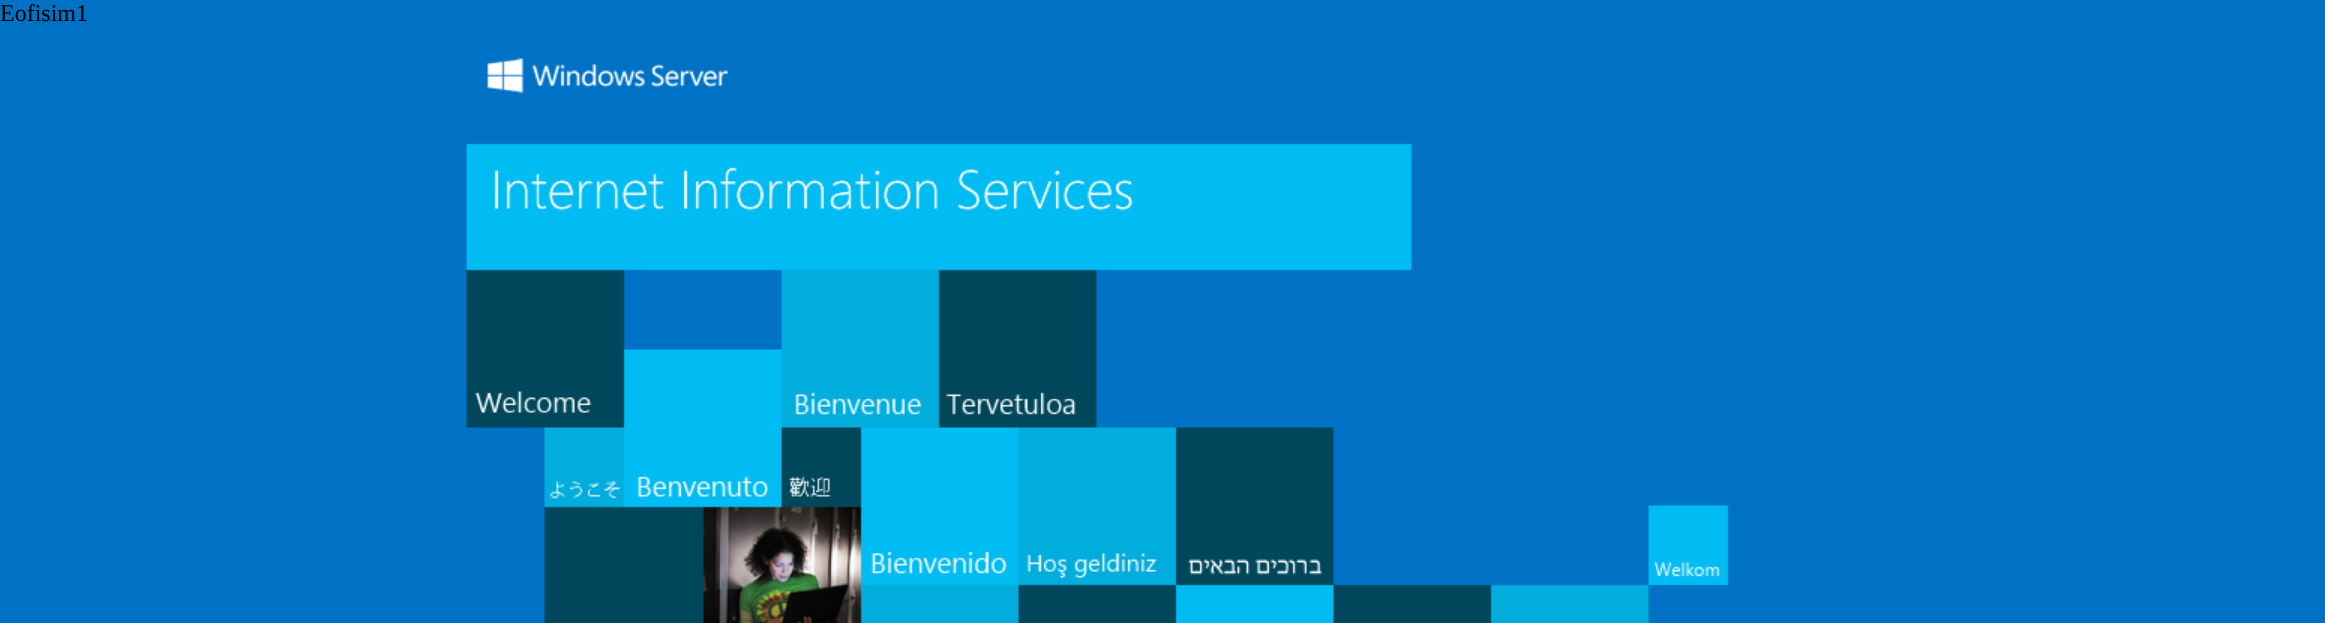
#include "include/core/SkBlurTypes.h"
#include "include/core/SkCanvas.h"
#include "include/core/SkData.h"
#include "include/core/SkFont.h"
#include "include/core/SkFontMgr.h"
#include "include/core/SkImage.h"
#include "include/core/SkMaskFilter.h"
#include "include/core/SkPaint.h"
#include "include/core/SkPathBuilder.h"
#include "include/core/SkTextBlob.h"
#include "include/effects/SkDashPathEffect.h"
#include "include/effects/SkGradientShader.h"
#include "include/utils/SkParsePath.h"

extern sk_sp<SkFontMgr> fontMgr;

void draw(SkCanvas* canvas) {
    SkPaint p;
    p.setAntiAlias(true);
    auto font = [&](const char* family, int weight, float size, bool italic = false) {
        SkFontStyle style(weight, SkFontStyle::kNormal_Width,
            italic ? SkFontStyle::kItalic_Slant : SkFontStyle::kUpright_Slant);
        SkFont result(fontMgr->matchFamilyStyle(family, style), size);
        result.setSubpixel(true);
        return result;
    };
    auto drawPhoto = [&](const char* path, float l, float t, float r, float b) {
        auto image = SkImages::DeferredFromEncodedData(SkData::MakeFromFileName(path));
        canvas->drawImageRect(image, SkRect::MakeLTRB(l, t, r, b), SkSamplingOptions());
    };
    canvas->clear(0xFF0072C6);
    auto font1 = font("Liberation Serif", 400, 24);
    p.setColor(0xFF000000);
    canvas->drawString("Eofisim1", 0, 21, font1, p);
    drawPhoto("media/1.png", 466, 58, 1729, 623);
}
